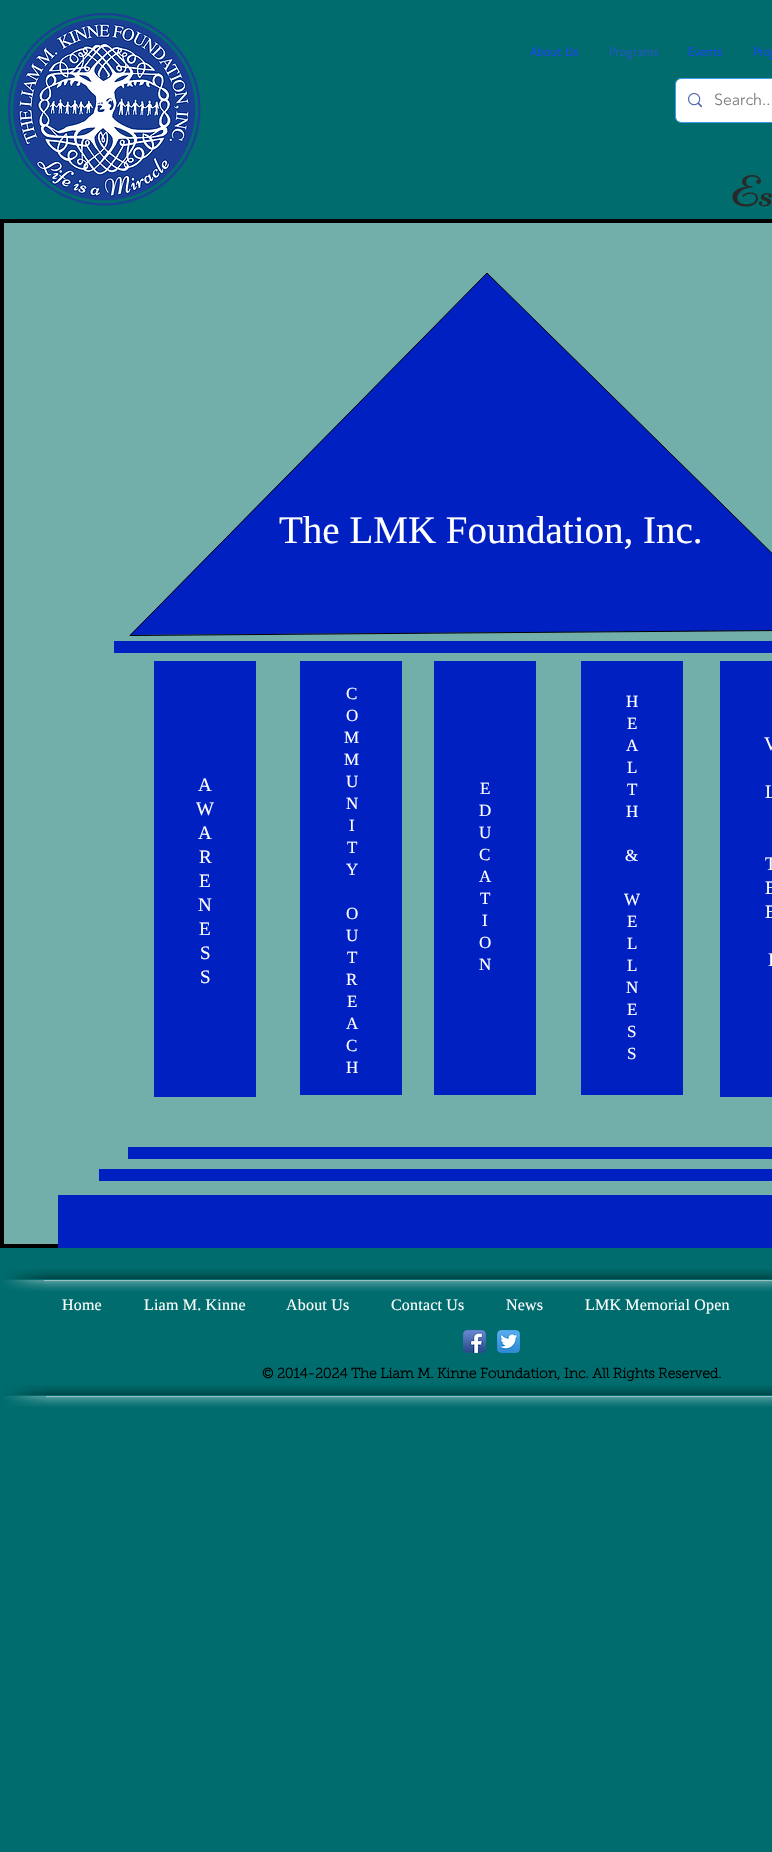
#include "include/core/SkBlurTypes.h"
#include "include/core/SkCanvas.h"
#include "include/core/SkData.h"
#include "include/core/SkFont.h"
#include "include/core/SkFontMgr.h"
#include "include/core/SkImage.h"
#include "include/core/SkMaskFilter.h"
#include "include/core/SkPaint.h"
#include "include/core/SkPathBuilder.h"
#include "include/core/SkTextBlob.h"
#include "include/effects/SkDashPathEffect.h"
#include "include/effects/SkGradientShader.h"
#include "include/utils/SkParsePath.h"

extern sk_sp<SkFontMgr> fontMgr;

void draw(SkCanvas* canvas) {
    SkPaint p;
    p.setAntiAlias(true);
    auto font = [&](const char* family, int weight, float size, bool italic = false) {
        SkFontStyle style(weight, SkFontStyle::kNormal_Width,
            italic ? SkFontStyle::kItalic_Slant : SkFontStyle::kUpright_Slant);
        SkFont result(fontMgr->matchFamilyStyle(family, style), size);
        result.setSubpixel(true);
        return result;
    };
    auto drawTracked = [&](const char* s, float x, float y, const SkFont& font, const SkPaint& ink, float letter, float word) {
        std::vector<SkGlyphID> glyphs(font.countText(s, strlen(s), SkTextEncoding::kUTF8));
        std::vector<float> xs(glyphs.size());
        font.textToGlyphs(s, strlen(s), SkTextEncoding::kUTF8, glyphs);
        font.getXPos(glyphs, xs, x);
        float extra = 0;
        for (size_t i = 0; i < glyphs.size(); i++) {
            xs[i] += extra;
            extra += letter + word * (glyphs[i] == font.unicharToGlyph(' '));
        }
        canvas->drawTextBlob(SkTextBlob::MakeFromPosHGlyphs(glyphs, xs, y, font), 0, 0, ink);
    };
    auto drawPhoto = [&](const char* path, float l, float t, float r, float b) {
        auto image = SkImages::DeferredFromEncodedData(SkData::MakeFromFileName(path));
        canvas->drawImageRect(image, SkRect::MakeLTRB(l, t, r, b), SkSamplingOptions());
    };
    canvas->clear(0xFF006C6D);
    drawPhoto("media/1.png", 7, 12, 201, 206);
    auto font1 = font("Overlock", 400, 13);
    p.setColor(0xFF1F45FC);
    canvas->drawString("About Us", 530, 56, font1, p);
    p.setColor(0xFF2554C7);
    canvas->drawString("Programs", 609, 56, font1, p);
    p.setColor(0xFF1F45FC);
    canvas->drawString("Events", 688, 56, font1, p);
    canvas->drawString("Proj", 753, 56, font1, p);
    p.setStyle(SkPaint::kStroke_Style);
    p.setStrokeWidth(1);
    p.setColor(0xFF3D9BE9);
    canvas->drawRoundRect(SkRect::MakeLTRB(675.5f, 78.5f, 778.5f, 122.5f), 5.5f, 5.5f, p);
    p.setStyle(SkPaint::kFill_Style);
    p.setColor(0xFFFFFFFF);
    canvas->drawRoundRect(SkRect::MakeLTRB(676, 79, 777, 122), 5, 5, p);
    drawPhoto("media/2.png", 688, 93, 702, 108);
    auto font2 = font("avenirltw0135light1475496", 300, 16);
    p.setColor(0xFF787878);
    canvas->drawString("Search..", 714, 105, font2, p);
    drawPhoto("media/3.png", 732, 175, 772, 207);
    p.setColor(0xFF72AFAB);
    canvas->drawRect(SkRect::MakeLTRB(2, 221, 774, 1246), p);
    p.setStyle(SkPaint::kStroke_Style);
    p.setStrokeWidth(4);
    p.setColor(0xFF000000);
    canvas->drawRect(SkRect::MakeLTRB(2, 221, 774, 1246), p);
    p.setStyle(SkPaint::kFill_Style);
    p.setColor(0xFF0020C2);
    canvas->drawPath(SkPathBuilder().moveTo(130, 635).lineTo(487, 273).lineTo(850, 630).close().detach(), p);
    p.setStyle(SkPaint::kStroke_Style);
    p.setStrokeWidth(1);
    p.setColor(0xFF000000);
    canvas->drawPath(SkPathBuilder().moveTo(130, 635.5f).lineTo(487, 273).lineTo(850, 630).close().detach(), p);
    auto font3 = font("Liberation Serif", 400, 39);
    p.setStyle(SkPaint::kFill_Style);
    p.setColor(0xFFFFFFFF);
    canvas->drawString("The LMK Foundation, Inc.", 279, 543, font3, p);
    {
        const struct { float l, t, r, b; SkColor color; } items[] = {
            {114, 641, 772, 653, 0xFF0020C2},
            {154, 661, 256, 1097, 0xFF0020C2},
            {300, 661, 402, 1095, 0xFF0020C2},
            {434, 661, 536, 1095, 0xFF0020C2},
            {581, 661, 683, 1095, 0xFF0020C2},
            {720, 661, 772, 1097, 0xFF0020C2},
        };
        for (auto [l, t, r, b, color] : items) {
            p.setColor(color);
            canvas->drawRect(SkRect::MakeLTRB(l, t, r, b), p);
        }
    }
    auto font4 = font("Liberation Serif", 400, 19);
    p.setColor(0xFFFFFFFF);
    {
        const struct { const char* s; float x, y; } items[] = {
            {"A", 198, 791},
            {"W", 196, 815},
            {"A", 198, 839},
            {"R", 199, 863},
            {"E", 199, 887},
            {"N", 198, 911},
            {"E", 199, 935},
            {"S", 200, 959},
            {"S", 200, 983},
        };
        for (auto [s, x, y] : items) {
            canvas->drawString(s, x, y, font4, p);
        }
    }
    auto font5 = font("Liberation Serif", 400, 17);
    {
        const struct { const char* s; float x, y; } items[] = {
            {"C", 346, 699},
            {"O", 346, 721},
            {"M", 344, 743},
            {"M", 344, 765},
            {"U", 346, 787},
            {"N", 346, 809},
            {"I", 349, 831},
            {"T", 347, 853},
            {"Y", 346, 875},
            {"O", 346, 919},
            {"U", 346, 941},
            {"T", 347, 963},
            {"R", 346, 985},
            {"E", 347, 1007},
            {"A", 346, 1029},
            {"C", 346, 1051},
            {"H", 346, 1073},
            {"E", 480, 794},
            {"D", 479, 816},
            {"U", 479, 838},
            {"C", 479, 860},
            {"A", 479, 882},
            {"T", 480, 904},
            {"I", 482, 926},
            {"O", 479, 948},
            {"N", 479, 970},
            {"H", 626, 707},
            {"E", 627, 729},
            {"A", 626, 751},
            {"L", 627, 773},
            {"T", 627, 795},
            {"H", 626, 817},
            {"&", 625, 861},
            {"W", 624, 905},
            {"E", 627, 927},
            {"L", 627, 949},
            {"L", 627, 971},
            {"N", 626, 993},
            {"E", 627, 1015},
            {"S", 627, 1037},
            {"S", 627, 1059},
        };
        for (auto [s, x, y] : items) {
            canvas->drawString(s, x, y, font5, p);
        }
    }
    {
        const struct { const char* s; float x, y; } items[] = {
            {"V", 764, 750},
            {"L", 765, 798},
            {"T", 765, 870},
            {"E", 765, 894},
            {"E", 765, 918},
            {"I", 768, 966},
        };
        for (auto [s, x, y] : items) {
            canvas->drawString(s, x, y, font4, p);
        }
    }
    {
        const struct { float l, t, r, b; SkColor color; } items[] = {
            {128, 1147, 772, 1159, 0xFF0020C2},
            {99, 1169, 772, 1181, 0xFF0020C2},
            {58, 1195, 772, 1248, 0xFF0020C2},
        };
        for (auto [l, t, r, b, color] : items) {
            p.setColor(color);
            canvas->drawRect(SkRect::MakeLTRB(l, t, r, b), p);
        }
    }
    drawPhoto("media/4.png", 44, 1269, 772, 1291);
    drawPhoto("media/5.png", 2, 1269, 44, 1291);
    auto font6 = font("Liberation Serif", 400, 16);
    p.setColor(0xFFFFFFFF);
    {
        const struct { const char* s; float x, y; } items[] = {
            {"Home", 62, 1310},
            {"Liam M. Kinne", 144, 1310},
            {"About Us", 286, 1310},
            {"Contact Us", 391, 1310},
            {"News", 506, 1310},
            {"LMK Memorial Open", 585, 1310},
        };
        for (auto [s, x, y] : items) {
            drawTracked(s, x, y, font6, p, 0.2f, 0);
        }
    }
    drawPhoto("media/6.png", 463, 1330, 486, 1353);
    drawPhoto("media/7.png", 497, 1330, 520, 1353);
    auto font7 = font("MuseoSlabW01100", 700, 14);
    p.setColor(0xFF000000);
    canvas->drawString("© 2014-2024 The Liam M. Kinne Foundation, Inc. All Rights Reserved.", 262, 1378, font7, p);
    drawPhoto("media/8.png", 46, 1385, 772, 1407);
    drawPhoto("media/5.png", 4, 1385, 46, 1407);
}
